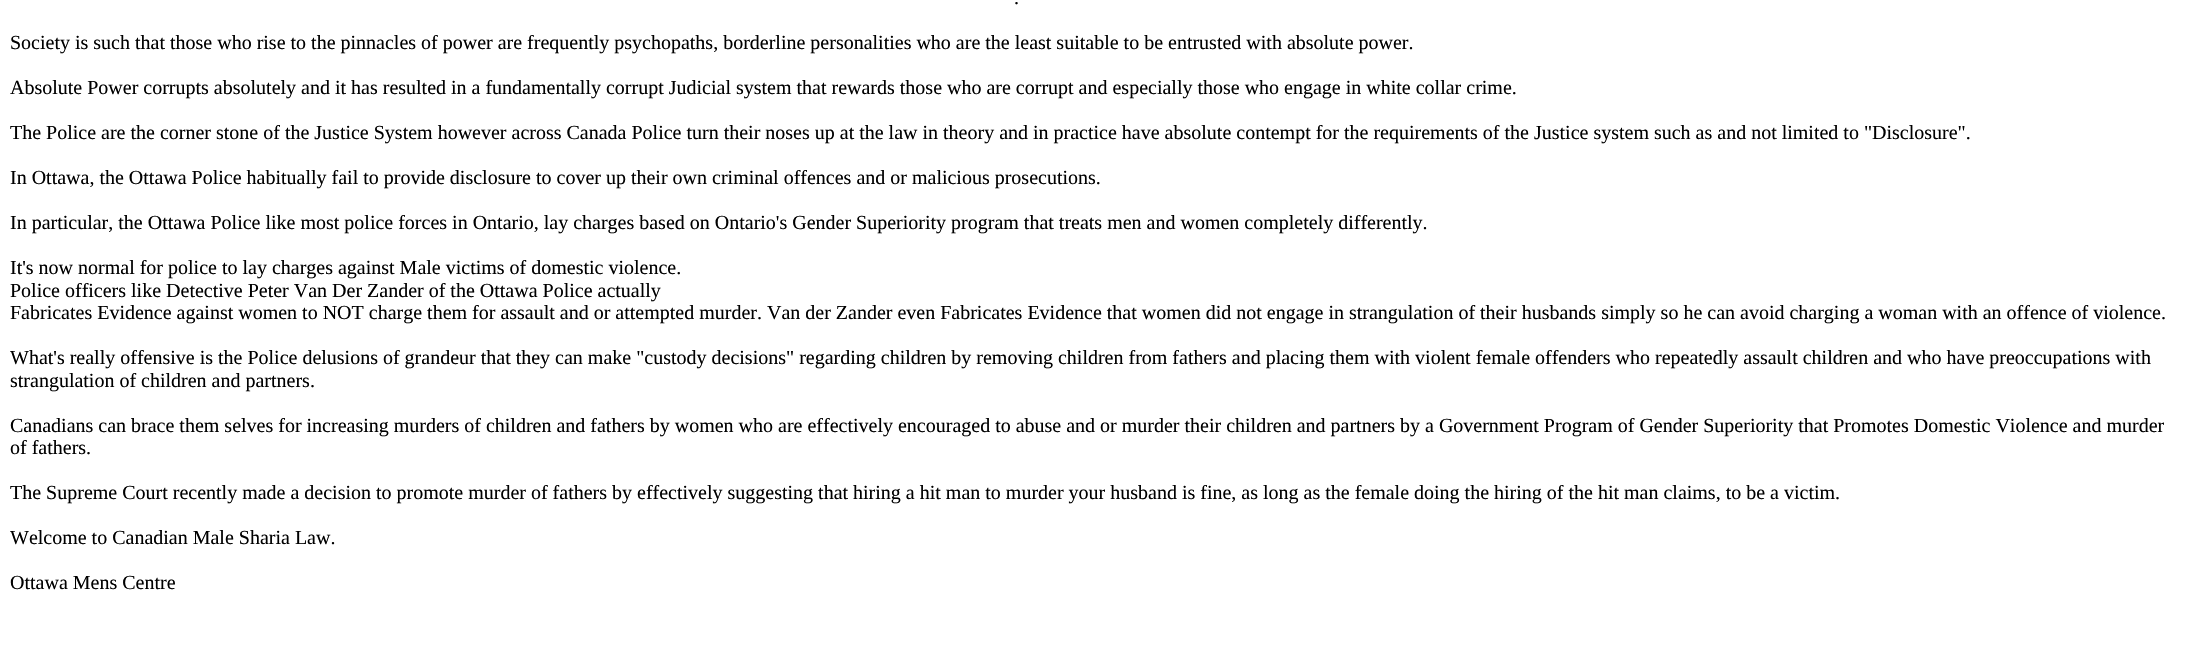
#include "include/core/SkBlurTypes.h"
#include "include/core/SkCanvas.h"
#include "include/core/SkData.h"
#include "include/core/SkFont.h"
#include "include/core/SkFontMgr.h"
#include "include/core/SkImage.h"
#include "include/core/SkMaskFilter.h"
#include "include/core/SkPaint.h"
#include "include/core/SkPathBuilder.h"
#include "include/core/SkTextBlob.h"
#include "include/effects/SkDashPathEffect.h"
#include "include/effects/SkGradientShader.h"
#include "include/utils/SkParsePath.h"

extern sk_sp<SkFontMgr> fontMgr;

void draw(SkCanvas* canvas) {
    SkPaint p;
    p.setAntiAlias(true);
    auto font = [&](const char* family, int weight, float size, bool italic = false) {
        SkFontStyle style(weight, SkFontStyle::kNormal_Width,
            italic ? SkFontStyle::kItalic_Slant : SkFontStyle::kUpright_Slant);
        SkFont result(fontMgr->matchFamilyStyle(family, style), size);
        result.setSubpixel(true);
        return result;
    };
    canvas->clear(0xFFFFFFFF);
    auto font1 = font("Liberation Serif", 400, 20);
    p.setColor(0xFF000000);
    {
        const struct { const char* s; float x, y; } items[] = {
            {".", 1014, 4},
            {"Society is such that those who rise to the pinnacles of power are frequently psychopaths, borderline personalities who are the least suitable to be entrusted with absolute power.", 10, 49},
            {"Absolute Power corrupts absolutely and it has resulted in a fundamentally corrupt Judicial system that rewards those who are corrupt and especially those who engage in white collar crime.", 10, 94},
            {"The Police are the corner stone of the Justice System however across Canada Police turn their noses up at the law in theory and in practice have absolute contempt for the requirements of the Justice system such as and not limited to \"Disclosure\".", 10, 139},
            {"In Ottawa, the Ottawa Police habitually fail to provide disclosure to cover up their own criminal offences and or malicious prosecutions.", 10, 184},
            {"In particular, the Ottawa Police like most police forces in Ontario, lay charges based on Ontario's Gender Superiority program that treats men and women completely differently.", 10, 229},
            {"It's now normal for police to lay charges against Male victims of domestic violence.", 10, 274},
            {"Police officers like Detective Peter Van Der Zander of the Ottawa Police actually", 10, 297},
            {"Fabricates Evidence against women to NOT charge them for assault and or attempted murder. Van der Zander even Fabricates Evidence that women did not engage in strangulation of their husbands simply so he can avoid charging a woman with an offence of violence.", 10, 319},
            {"What's really offensive is the Police delusions of grandeur that they can make \"custody decisions\" regarding children by removing children from fathers and placing them with violent female offenders who repeatedly assault children and who have preoccupations with", 10, 364},
            {"strangulation of children and partners.", 10, 387},
            {"Canadians can brace them selves for increasing murders of children and fathers by women who are effectively encouraged to abuse and or murder their children and partners by a Government Program of Gender Superiority that Promotes Domestic Violence and murder", 10, 432},
            {"of fathers.", 10, 454},
            {"The Supreme Court recently made a decision to promote murder of fathers by effectively suggesting that hiring a hit man to murder your husband is fine, as long as the female doing the hiring of the hit man claims, to be a victim.", 10, 499},
            {"Welcome to Canadian Male Sharia Law.", 10, 544},
            {"Ottawa Mens Centre", 10, 589},
        };
        for (auto [s, x, y] : items) {
            canvas->drawString(s, x, y, font1, p);
        }
    }
}
